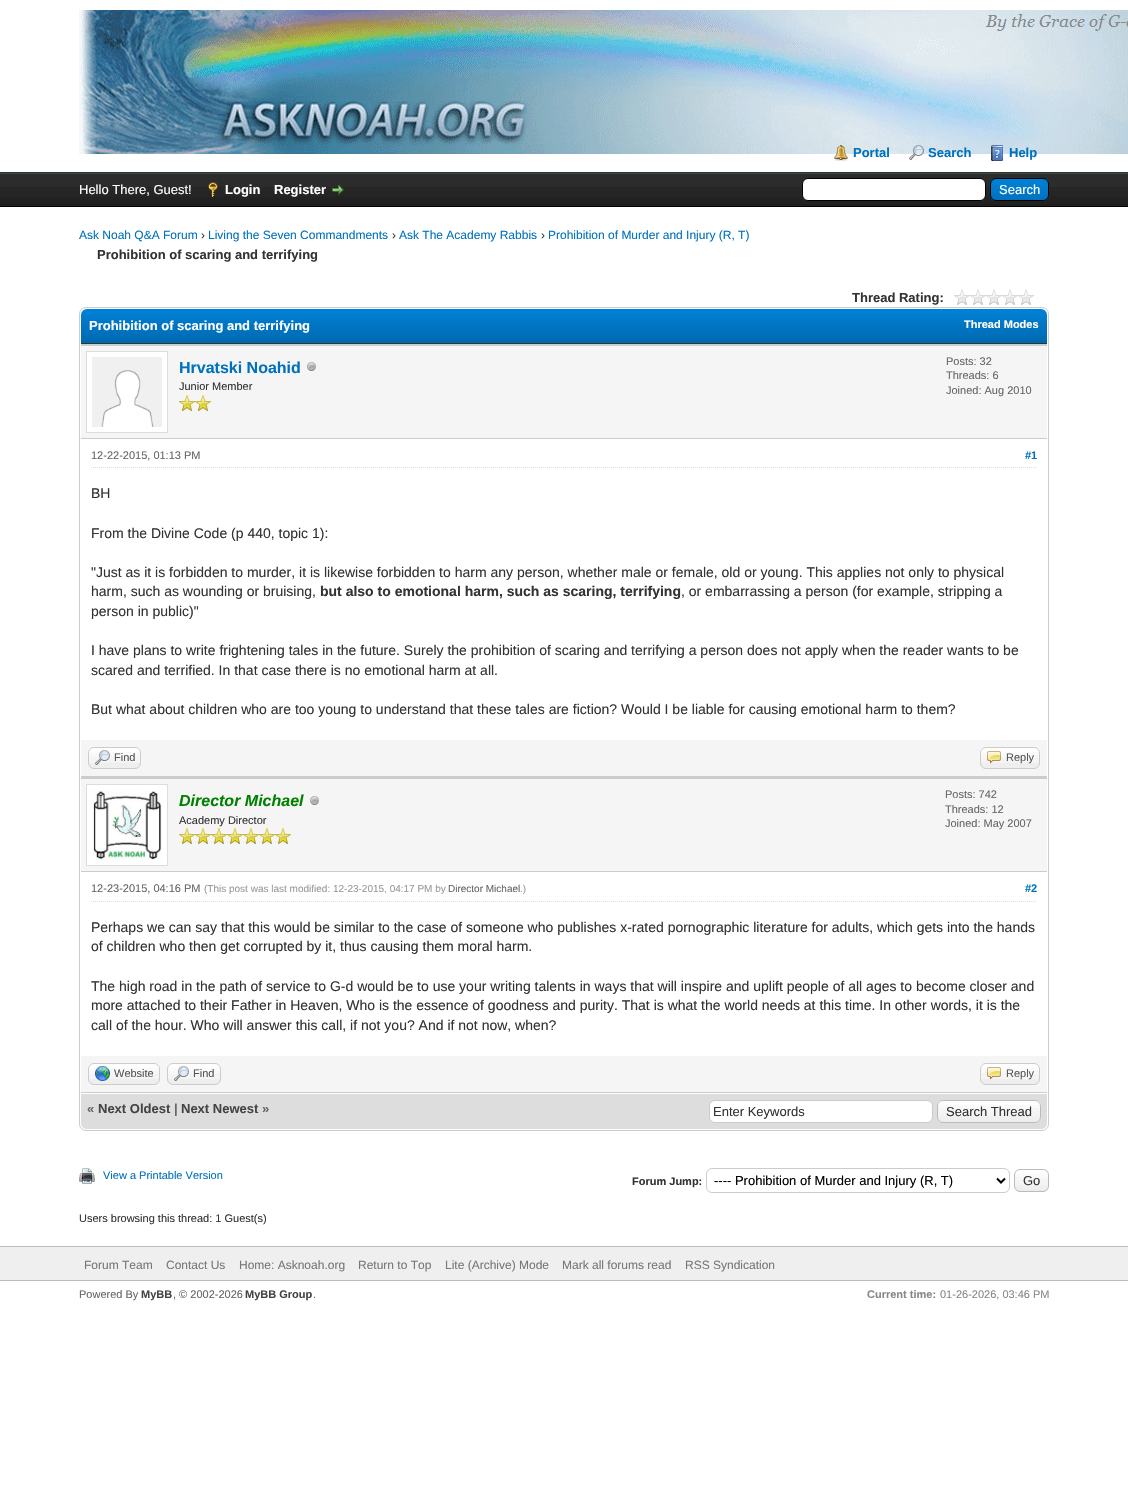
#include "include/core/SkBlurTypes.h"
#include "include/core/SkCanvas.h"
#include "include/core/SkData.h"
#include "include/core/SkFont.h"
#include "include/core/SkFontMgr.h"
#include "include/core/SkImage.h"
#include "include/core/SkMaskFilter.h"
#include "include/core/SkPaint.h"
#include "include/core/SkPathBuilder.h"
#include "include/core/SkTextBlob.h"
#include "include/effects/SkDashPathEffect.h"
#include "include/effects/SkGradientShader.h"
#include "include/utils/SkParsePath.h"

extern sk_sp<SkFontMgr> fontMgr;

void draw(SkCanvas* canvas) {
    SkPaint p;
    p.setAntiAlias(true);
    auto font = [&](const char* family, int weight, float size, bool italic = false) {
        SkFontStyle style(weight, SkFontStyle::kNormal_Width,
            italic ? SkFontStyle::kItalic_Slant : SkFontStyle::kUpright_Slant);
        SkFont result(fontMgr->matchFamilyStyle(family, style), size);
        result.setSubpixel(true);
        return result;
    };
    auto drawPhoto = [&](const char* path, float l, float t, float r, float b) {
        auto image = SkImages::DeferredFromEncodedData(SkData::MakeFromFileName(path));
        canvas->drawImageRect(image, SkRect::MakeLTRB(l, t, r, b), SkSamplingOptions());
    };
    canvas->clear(0xFFFFFFFF);
    p.setColor(0xFF263C30);
    canvas->drawRect(SkRect::MakeLTRB(0, 172, 1128, 173), p);
    drawPhoto("media/1.png", 79, 10, 1128, 154);
    drawPhoto("media/2.png", 834, 145, 848, 161);
    auto font1 = font("Liberation Sans", 700, 13);
    p.setColor(0xFF0072BC);
    canvas->drawString("Portal", 853, 157, font1, p);
    drawPhoto("media/3.png", 909, 145, 924, 160);
    canvas->drawString("Search", 928, 157, font1, p);
    drawPhoto("media/4.png", 991, 145, 1003, 161);
    canvas->drawString("Help", 1009, 157, font1, p);
    drawPhoto("media/5.png", 0, 174, 1128, 206);
    p.setColor(0xFF444444);
    canvas->drawRect(SkRect::MakeLTRB(0, 173, 1128, 174), p);
    p.setColor(0xFF000000);
    canvas->drawRect(SkRect::MakeLTRB(0, 206, 1128, 207), p);
    auto font2 = font("Liberation Sans", 400, 13);
    p.setColor(0xFFFFFFFF);
    canvas->drawString("Hello There, Guest!", 79, 194, font2, p);
    drawPhoto("media/6.png", 208, 182, 218, 197);
    canvas->drawString("Login", 225, 194, font1, p);
    canvas->drawString("Register", 274, 194, font1, p);
    drawPhoto("media/7.png", 332, 185, 344, 195);
    canvas->drawRoundRect(SkRect::MakeLTRB(802.5f, 178.5f, 985.5f, 200.5f), 5.5f, 5.5f, p);
    p.setStyle(SkPaint::kStroke_Style);
    p.setStrokeWidth(1);
    p.setColor(0xFF000000);
    canvas->drawRoundRect(SkRect::MakeLTRB(802.5f, 178.5f, 985.5f, 200.5f), 5.5f, 5.5f, p);
    drawPhoto("media/8.png", 990, 179, 1049, 201);
    canvas->drawRoundRect(SkRect::MakeLTRB(990.5f, 178.5f, 1048.5f, 200.5f), 5.5f, 5.5f, p);
    p.setStyle(SkPaint::kFill_Style);
    p.setColor(0xFFFFFFFF);
    canvas->drawString("Search", 999, 194, font2, p);
    auto font3 = font("Liberation Sans", 400, 12);
    p.setColor(0xFF0072BC);
    canvas->drawString("Ask Noah Q&A Forum", 79, 239, font3, p);
    p.setColor(0xFF333333);
    canvas->drawString("›", 201, 239, font3, p);
    p.setColor(0xFF0072BC);
    canvas->drawString("Living the Seven Commandments", 208, 239, font3, p);
    p.setColor(0xFF333333);
    canvas->drawString("›", 392, 239, font3, p);
    p.setColor(0xFF0072BC);
    canvas->drawString("Ask The Academy Rabbis", 399, 239, font3, p);
    p.setColor(0xFF333333);
    canvas->drawString("›", 541, 239, font3, p);
    p.setColor(0xFF0072BC);
    canvas->drawString("Prohibition of Murder and Injury (R, T)", 548, 239, font3, p);
    p.setColor(0xFF333333);
    canvas->drawString("Prohibition of scaring and terrifying", 97, 259, font1, p);
    canvas->drawString("Thread Rating:", 852, 302, font1, p);
    drawPhoto("media/9.png", 954, 289, 1034, 305);
    p.setStyle(SkPaint::kStroke_Style);
    p.setColor(0xFFCCCCCC);
    canvas->drawRoundRect(SkRect::MakeLTRB(79.5f, 307.5f, 1048.5f, 1130.5f), 6.5f, 6.5f, p);
    drawPhoto("media/10.png", 81, 309, 1047, 343);
    p.setStyle(SkPaint::kFill_Style);
    p.setColor(0xFF263C30);
    canvas->drawRect(SkRect::MakeLTRB(81, 343, 1047, 344), p);
    p.setColor(0xFFFFFFFF);
    canvas->drawString("Prohibition of scaring and terrifying", 89, 330, font1, p);
    auto font4 = font("Liberation Sans", 700, 11);
    canvas->drawString("Thread Modes", 964, 328, font4, p);
    {
        const struct { float l, t, r, b; SkColor color; } items[] = {
            {81, 346, 1047, 438, 0xFFF5F5F5},
            {81, 344, 1047, 346, 0xFFCCCCCC},
            {81, 438, 1047, 439, 0xFFCCCCCC},
        };
        for (auto [l, t, r, b, color] : items) {
            p.setColor(color);
            canvas->drawRect(SkRect::MakeLTRB(l, t, r, b), p);
        }
    }
    p.setColor(0xFFFFFFFF);
    canvas->drawRect(SkRect::MakeLTRB(86.5f, 351.5f, 167.5f, 432.5f), p);
    p.setStyle(SkPaint::kStroke_Style);
    p.setColor(0xFFDDDDDD);
    canvas->drawRect(SkRect::MakeLTRB(86.5f, 351.5f, 167.5f, 432.5f), p);
    drawPhoto("media/11.png", 92, 357, 162, 427);
    auto font5 = font("Liberation Sans", 700, 16);
    p.setStyle(SkPaint::kFill_Style);
    p.setColor(0xFF0072BC);
    canvas->drawString("Hrvatski Noahid", 179, 373, font5, p);
    drawPhoto("media/12.png", 307, 362, 316, 371);
    auto font6 = font("Liberation Sans", 400, 11);
    p.setColor(0xFF333333);
    canvas->drawString("Junior Member", 179, 390, font6, p);
    drawPhoto("media/13.png", 179, 395, 195, 411);
    drawPhoto("media/13.png", 195, 395, 211, 411);
    p.setColor(0xFF666666);
    {
        const struct { const char* s; float x, y; } items[] = {
            {"Posts: 32", 946, 365},
            {"Threads: 6", 946, 379},
            {"Joined: Aug 2010", 946, 394},
        };
        for (auto [s, x, y] : items) {
            canvas->drawString(s, x, y, font6, p);
        }
    }
    p.setStyle(SkPaint::kStroke_Style);
    p.setColor(0xFFDDDDDD);
    p.setPathEffect(SkDashPathEffect::Make({{1, 1}}, 0));
    canvas->drawPath(SkPathBuilder().moveTo(91, 467.5f).lineTo(1037, 467.5f).detach(), p);
    p.setPathEffect(nullptr);
    p.setStyle(SkPaint::kFill_Style);
    p.setColor(0xFF666666);
    canvas->drawString("12-22-2015, 01:13 PM", 91, 459, font6, p);
    p.setColor(0xFF0072BC);
    canvas->drawString("#1", 1025, 459, font4, p);
    auto font7 = font("Liberation Sans", 400, 14);
    p.setColor(0xFF333333);
    {
        const struct { const char* s; float x, y; } items[] = {
            {"BH", 91, 498},
            {"From the Divine Code (p 440, topic 1):", 91, 538},
            {"\"Just as it is forbidden to murder, it is likewise forbidden to harm any person, whether male or female, old or young. This applies not only to physical", 91, 577},
            {"harm, such as wounding or bruising,", 91, 596},
        };
        for (auto [s, x, y] : items) {
            canvas->drawString(s, x, y, font7, p);
        }
    }
    auto font8 = font("Liberation Sans", 700, 14);
    canvas->drawString("but also to emotional harm, such as scaring, terrifying", 320, 596, font8, p);
    {
        const struct { const char* s; float x, y; } items[] = {
            {", or embarrassing a person (for example, stripping a", 681, 596},
            {"person in public)\"", 91, 616},
            {"I have plans to write frightening tales in the future. Surely the prohibition of scaring and terrifying a person does not apply when the reader wants to be", 91, 655},
            {"scared and terrified. In that case there is no emotional harm at all.", 91, 675},
            {"But what about children who are too young to understand that these tales are fiction? Would I be liable for causing emotional harm to them?", 91, 714},
        };
        for (auto [s, x, y] : items) {
            canvas->drawString(s, x, y, font7, p);
        }
    }
    p.setColor(0xFFF5F5F5);
    canvas->drawRect(SkRect::MakeLTRB(81, 740, 1047, 776), p);
    p.setColor(0xFFCCCCCC);
    canvas->drawRect(SkRect::MakeLTRB(81, 776, 1047, 779), p);
    p.setColor(0xFFEEEEEE);
    canvas->drawRoundRect(SkRect::MakeLTRB(88, 747, 141, 769), 6, 6, p);
    drawPhoto("media/14.png", 88, 748, 141, 763);
    p.setStyle(SkPaint::kStroke_Style);
    p.setColor(0xFFCCCCCC);
    canvas->drawRoundRect(SkRect::MakeLTRB(88.5f, 747.5f, 140.5f, 768.5f), 5.5f, 5.5f, p);
    drawPhoto("media/15.png", 95, 750, 110, 765);
    p.setStyle(SkPaint::kFill_Style);
    p.setColor(0xFF555555);
    canvas->drawString("Find", 114, 761, font6, p);
    p.setColor(0xFFEEEEEE);
    canvas->drawRoundRect(SkRect::MakeLTRB(980, 747, 1040, 769), 6, 6, p);
    drawPhoto("media/16.png", 980, 748, 1040, 763);
    p.setStyle(SkPaint::kStroke_Style);
    p.setColor(0xFFCCCCCC);
    canvas->drawRoundRect(SkRect::MakeLTRB(980.5f, 747.5f, 1039.5f, 768.5f), 5.5f, 5.5f, p);
    drawPhoto("media/17.png", 987, 751, 1001, 763);
    p.setStyle(SkPaint::kFill_Style);
    p.setColor(0xFF555555);
    canvas->drawString("Reply", 1006, 761, font6, p);
    p.setColor(0xFFF5F5F5);
    canvas->drawRect(SkRect::MakeLTRB(81, 779, 1047, 871), p);
    p.setColor(0xFFCCCCCC);
    canvas->drawRect(SkRect::MakeLTRB(81, 871, 1047, 872), p);
    p.setColor(0xFFFFFFFF);
    canvas->drawRect(SkRect::MakeLTRB(86.5f, 784.5f, 167.5f, 865.5f), p);
    p.setStyle(SkPaint::kStroke_Style);
    p.setColor(0xFFDDDDDD);
    canvas->drawRect(SkRect::MakeLTRB(86.5f, 784.5f, 167.5f, 865.5f), p);
    drawPhoto("media/18.png", 93, 791, 162, 860);
    auto font9 = font("Liberation Sans", 700, 16, true);
    p.setStyle(SkPaint::kFill_Style);
    p.setColor(0xFF008000);
    canvas->drawString("Director Michael", 179, 806, font9, p);
    drawPhoto("media/12.png", 310, 796, 319, 805);
    p.setColor(0xFF333333);
    canvas->drawString("Academy Director", 179, 824, font6, p);
    drawPhoto("media/13.png", 179, 828, 195, 844);
    drawPhoto("media/13.png", 195, 828, 211, 844);
    drawPhoto("media/13.png", 211, 828, 227, 844);
    drawPhoto("media/13.png", 227, 828, 243, 844);
    drawPhoto("media/13.png", 243, 828, 259, 844);
    drawPhoto("media/13.png", 259, 828, 275, 844);
    drawPhoto("media/13.png", 275, 828, 291, 844);
    p.setColor(0xFF666666);
    {
        const struct { const char* s; float x, y; } items[] = {
            {"Posts: 742", 945, 798},
            {"Threads: 12", 945, 813},
            {"Joined: May 2007", 945, 827},
        };
        for (auto [s, x, y] : items) {
            canvas->drawString(s, x, y, font6, p);
        }
    }
    p.setStyle(SkPaint::kStroke_Style);
    p.setColor(0xFFDDDDDD);
    p.setPathEffect(SkDashPathEffect::Make({{1, 1}}, 0));
    canvas->drawPath(SkPathBuilder().moveTo(91, 901.5f).lineTo(1037, 901.5f).detach(), p);
    p.setPathEffect(nullptr);
    p.setStyle(SkPaint::kFill_Style);
    p.setColor(0xFF666666);
    canvas->drawString("12-23-2015, 04:16 PM", 91, 892, font6, p);
    auto font10 = font("Liberation Sans", 400, 10);
    p.setColor(0xFF999999);
    canvas->drawString("(This post was last modified: 12-23-2015, 04:17 PM by", 204, 892, font10, p);
    p.setColor(0xFF666666);
    canvas->drawString("Director Michael", 448, 892, font10, p);
    p.setColor(0xFF999999);
    canvas->drawString(".)", 520, 892, font10, p);
    p.setColor(0xFF0072BC);
    canvas->drawString("#2", 1025, 892, font4, p);
    p.setColor(0xFF333333);
    {
        const struct { const char* s; float x, y; } items[] = {
            {"Perhaps we can say that this would be similar to the case of someone who publishes x-rated pornographic literature for adults, which gets into the hands", 91, 932},
            {"of children who then get corrupted by it, thus causing them moral harm.", 91, 951},
            {"The high road in the path of service to G-d would be to use your writing talents in ways that will inspire and uplift people of all ages to become closer and", 91, 991},
            {"more attached to their Father in Heaven, Who is the essence of goodness and purity. That is what the world needs at this time. In other words, it is the", 91, 1010},
            {"call of the hour. Who will answer this call, if not you? And if not now, when?", 91, 1030},
        };
        for (auto [s, x, y] : items) {
            canvas->drawString(s, x, y, font7, p);
        }
    }
    p.setColor(0xFFF5F5F5);
    canvas->drawRect(SkRect::MakeLTRB(81, 1056, 1047, 1092), p);
    p.setColor(0xFFCCCCCC);
    canvas->drawRect(SkRect::MakeLTRB(81, 1092, 1047, 1093), p);
    p.setColor(0xFFEEEEEE);
    canvas->drawRoundRect(SkRect::MakeLTRB(88, 1063, 160, 1085), 6, 6, p);
    drawPhoto("media/19.png", 88, 1064, 160, 1079);
    p.setStyle(SkPaint::kStroke_Style);
    p.setColor(0xFFCCCCCC);
    canvas->drawRoundRect(SkRect::MakeLTRB(88.5f, 1063.5f, 159.5f, 1084.5f), 5.5f, 5.5f, p);
    drawPhoto("media/20.png", 95, 1066, 110, 1081);
    p.setStyle(SkPaint::kFill_Style);
    p.setColor(0xFF555555);
    canvas->drawString("Website", 114, 1077, font6, p);
    p.setColor(0xFFEEEEEE);
    canvas->drawRoundRect(SkRect::MakeLTRB(167, 1063, 221, 1085), 6, 6, p);
    drawPhoto("media/21.png", 167, 1064, 221, 1079);
    p.setStyle(SkPaint::kStroke_Style);
    p.setColor(0xFFCCCCCC);
    canvas->drawRoundRect(SkRect::MakeLTRB(167.5f, 1063.5f, 220.5f, 1084.5f), 5.5f, 5.5f, p);
    drawPhoto("media/15.png", 174, 1066, 189, 1081);
    p.setStyle(SkPaint::kFill_Style);
    p.setColor(0xFF555555);
    canvas->drawString("Find", 193, 1077, font6, p);
    p.setColor(0xFFEEEEEE);
    canvas->drawRoundRect(SkRect::MakeLTRB(980, 1063, 1040, 1085), 6, 6, p);
    drawPhoto("media/16.png", 980, 1064, 1040, 1079);
    p.setStyle(SkPaint::kStroke_Style);
    p.setColor(0xFFCCCCCC);
    canvas->drawRoundRect(SkRect::MakeLTRB(980.5f, 1063.5f, 1039.5f, 1084.5f), 5.5f, 5.5f, p);
    drawPhoto("media/17.png", 987, 1067, 1001, 1079);
    p.setStyle(SkPaint::kFill_Style);
    p.setColor(0xFF555555);
    canvas->drawString("Reply", 1006, 1077, font6, p);
    p.setColor(0xFFDDDDDD);
    canvas->drawPath(SkPathBuilder().moveTo(81, 1093).lineTo(1047, 1093).lineTo(1047, 1123).cubicTo(1047, 1126.5f, 1044.5f, 1129, 1041, 1129).lineTo(87, 1129).cubicTo(83.5f, 1129, 81, 1126.5f, 81, 1123).close().detach(), p);
    p.setColor(0xFFFFFFFF);
    canvas->drawRect(SkRect::MakeLTRB(81, 1093, 1047, 1094), p);
    p.setColor(0xFF666666);
    canvas->drawString("«", 87, 1113, font1, p);
    p.setColor(0xFF444444);
    canvas->drawString("Next Oldest", 98, 1113, font1, p);
    p.setColor(0xFF666666);
    canvas->drawString("|", 174, 1113, font1, p);
    p.setColor(0xFF444444);
    canvas->drawString("Next Newest", 181, 1113, font1, p);
    p.setColor(0xFF666666);
    canvas->drawString("»", 262, 1113, font1, p);
    p.setColor(0xFFFFFFFF);
    canvas->drawRoundRect(SkRect::MakeLTRB(709.5f, 1100.5f, 932.5f, 1122.5f), 5.5f, 5.5f, p);
    p.setStyle(SkPaint::kStroke_Style);
    p.setColor(0xFFCCCCCC);
    canvas->drawRoundRect(SkRect::MakeLTRB(709.5f, 1100.5f, 932.5f, 1122.5f), 5.5f, 5.5f, p);
    p.setStyle(SkPaint::kFill_Style);
    p.setColor(0xFF333333);
    canvas->drawString("Enter Keywords", 713, 1116, font2, p);
    p.setColor(0xFFEEEEEE);
    canvas->drawRoundRect(SkRect::MakeLTRB(937, 1100, 1041, 1123), 6, 6, p);
    drawPhoto("media/22.png", 937, 1101, 1041, 1119);
    p.setStyle(SkPaint::kStroke_Style);
    p.setColor(0xFFBBBBBB);
    canvas->drawRoundRect(SkRect::MakeLTRB(937.5f, 1100.5f, 1040.5f, 1122.5f), 5.5f, 5.5f, p);
    p.setStyle(SkPaint::kFill_Style);
    p.setColor(0xFF333333);
    canvas->drawString("Search Thread", 946, 1116, font2, p);
    drawPhoto("media/23.png", 79, 1168, 95, 1184);
    p.setColor(0xFF0072BC);
    canvas->drawString("View a Printable Version", 103, 1179, font6, p);
    p.setColor(0xFF333333);
    canvas->drawString("Forum Jump:", 632, 1185, font4, p);
    p.setStyle(SkPaint::kStroke_Style);
    p.setColor(0xFFCCCCCC);
    canvas->drawRoundRect(SkRect::MakeLTRB(706.5f, 1168.5f, 1009.5f, 1192.5f), 5.5f, 5.5f, p);
    p.setStrokeWidth(2);
    p.setColor(0xFF000000);
    canvas->drawPath(SkPathBuilder().moveTo(997, 1178.5f).lineTo(1001, 1182.5f).lineTo(1005, 1178.5f).detach(), p);
    p.setStyle(SkPaint::kFill_Style);
    canvas->drawString("---- Prohibition of Murder and Injury (R, T)", 714, 1185, font2, p);
    drawPhoto("media/24.png", 1014, 1170, 1049, 1192);
    p.setStyle(SkPaint::kStroke_Style);
    p.setStrokeWidth(1);
    p.setColor(0xFFBBBBBB);
    canvas->drawRoundRect(SkRect::MakeLTRB(1014.5f, 1169.5f, 1048.5f, 1191.5f), 5.5f, 5.5f, p);
    p.setStyle(SkPaint::kFill_Style);
    p.setColor(0xFF333333);
    canvas->drawString("Go", 1023, 1185, font2, p);
    canvas->drawString("Users browsing this thread: 1 Guest(s)", 79, 1222, font6, p);
    {
        const struct { float l, t, r, b; SkColor color; } items[] = {
            {0, 1247, 1128, 1280, 0xFFEFEFEF},
            {0, 1246, 1128, 1247, 0xFFBBBBBB},
            {0, 1280, 1128, 1281, 0xFFBBBBBB},
        };
        for (auto [l, t, r, b, color] : items) {
            p.setColor(color);
            canvas->drawRect(SkRect::MakeLTRB(l, t, r, b), p);
        }
    }
    p.setColor(0xFF777777);
    {
        const struct { const char* s; float x, y; } items[] = {
            {"Forum Team", 84, 1269},
            {"Contact Us", 166, 1269},
            {"Home: Asknoah.org", 239, 1269},
            {"Return to Top", 358, 1269},
            {"Lite (Archive) Mode", 445, 1269},
            {"Mark all forums read", 562, 1269},
            {"RSS Syndication", 685, 1269},
        };
        for (auto [s, x, y] : items) {
            canvas->drawString(s, x, y, font3, p);
        }
    }
    p.setColor(0xFF666666);
    canvas->drawString("Powered By", 79, 1298, font6, p);
    p.setColor(0xFF444444);
    canvas->drawString("MyBB", 141, 1298, font4, p);
    p.setColor(0xFF666666);
    canvas->drawString(", © 2002-2026", 173, 1298, font6, p);
    p.setColor(0xFF444444);
    canvas->drawString("MyBB Group", 245, 1298, font4, p);
    p.setColor(0xFF666666);
    canvas->drawString(".", 313, 1298, font6, p);
    p.setColor(0xFF888888);
    canvas->drawString("Current time:", 867, 1298, font4, p);
    canvas->drawString("01-26-2026, 03:46 PM", 940, 1298, font6, p);
}
